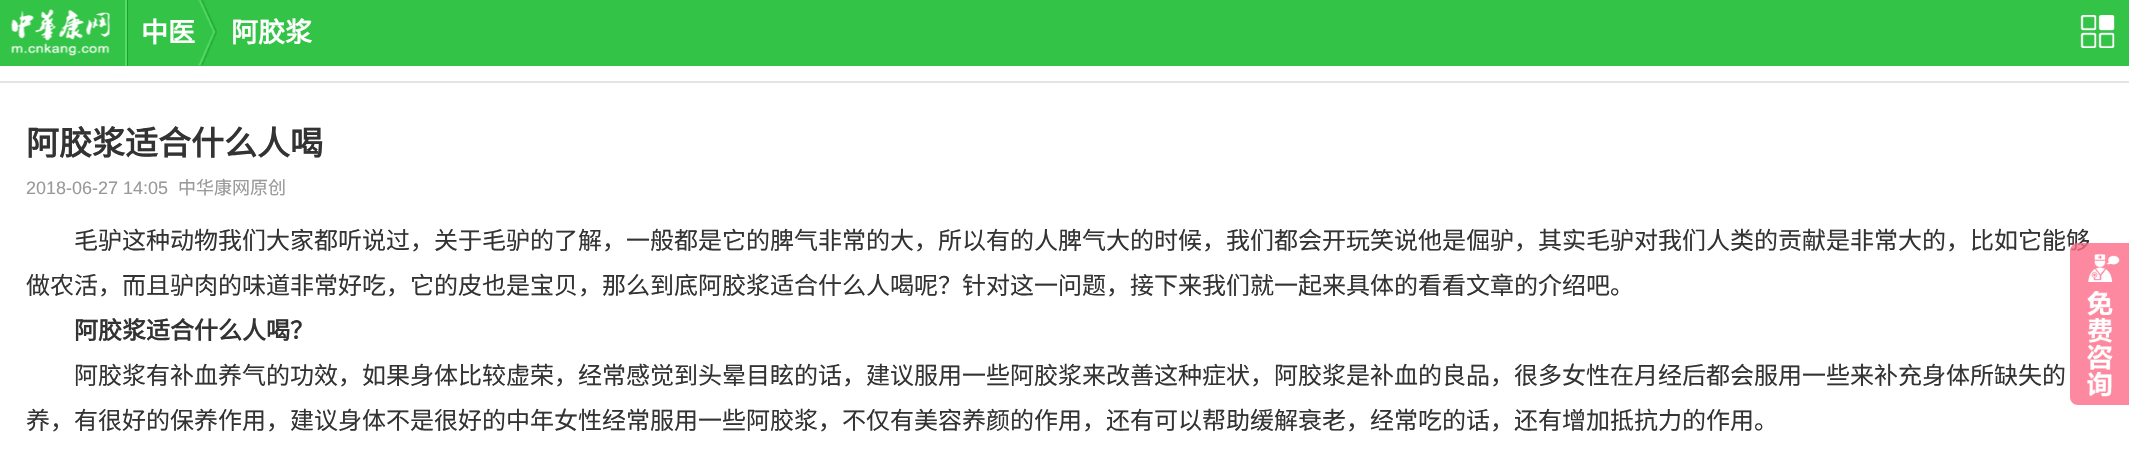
#include "include/core/SkBlurTypes.h"
#include "include/core/SkCanvas.h"
#include "include/core/SkData.h"
#include "include/core/SkFont.h"
#include "include/core/SkFontMgr.h"
#include "include/core/SkImage.h"
#include "include/core/SkMaskFilter.h"
#include "include/core/SkPaint.h"
#include "include/core/SkPathBuilder.h"
#include "include/core/SkTextBlob.h"
#include "include/effects/SkDashPathEffect.h"
#include "include/effects/SkGradientShader.h"
#include "include/utils/SkParsePath.h"

extern sk_sp<SkFontMgr> fontMgr;

void draw(SkCanvas* canvas) {
    SkPaint p;
    p.setAntiAlias(true);
    auto font = [&](const char* family, int weight, float size, bool italic = false) {
        SkFontStyle style(weight, SkFontStyle::kNormal_Width,
            italic ? SkFontStyle::kItalic_Slant : SkFontStyle::kUpright_Slant);
        SkFont result(fontMgr->matchFamilyStyle(family, style), size);
        result.setSubpixel(true);
        return result;
    };
    auto drawPhoto = [&](const char* path, float l, float t, float r, float b) {
        auto image = SkImages::DeferredFromEncodedData(SkData::MakeFromFileName(path));
        canvas->drawImageRect(image, SkRect::MakeLTRB(l, t, r, b), SkSamplingOptions());
    };
    canvas->clear(0xFFFFFFFF);
    p.setColor(0xFF33C346);
    canvas->drawRect(SkRect::MakeLTRB(0, 0, 2129, 66), p);
    drawPhoto("media/1.png", 11, 9, 110, 56);
    p.setColor(0xFF18A42A);
    canvas->drawRect(SkRect::MakeLTRB(127, 0, 128, 66), p);
    p.setColor(0xFF56DA67);
    canvas->drawRect(SkRect::MakeLTRB(125, 0, 127, 66), p);
    auto font1 = font("Noto Sans CJK SC", 700, 27);
    p.setColor(0xFFFFFFFF);
    canvas->drawString("中医", 141, 42, font1, p);
    drawPhoto("media/2.png", 198, 0, 217, 66);
    canvas->drawString("阿胶浆", 231, 42, font1, p);
    drawPhoto("media/3.png", 2080, 15, 2115, 48);
    p.setColor(0xFFE4E4E4);
    canvas->drawRect(SkRect::MakeLTRB(0, 81, 2129, 83), p);
    auto font2 = font("Noto Sans CJK SC", 700, 33);
    p.setColor(0xFF333333);
    canvas->drawString("阿胶浆适合什么人喝", 26, 155, font2, p);
    auto font3 = font("Liberation Sans", 400, 18);
    p.setColor(0xFF999999);
    canvas->drawString("2018-06-27 14:05", 26, 194, font3, p);
    auto font4 = font("Noto Sans CJK SC", 400, 18);
    canvas->drawString("中华康网原创", 178, 194, font4, p);
    auto font5 = font("Noto Sans CJK SC", 400, 24);
    p.setColor(0xFF333333);
    canvas->drawString("毛驴这种动物我们大家都听说过，关于毛驴的了解，一般都是它的脾气非常的大，所以有的人脾气大的时候，我们都会开玩笑说他是倔驴，其实毛驴对我们人类的贡献是非常大的，比如它能够", 74, 249, font5, p);
    canvas->drawString("做农活，而且驴肉的味道非常好吃，它的皮也是宝贝，那么到底阿胶浆适合什么人喝呢？针对这一问题，接下来我们就一起来具体的看看文章的介绍吧。", 26, 294, font5, p);
    auto font6 = font("Noto Sans CJK SC", 700, 24);
    canvas->drawString("阿胶浆适合什么人喝？", 74, 339, font6, p);
    canvas->drawString("阿胶浆有补血养气的功效，如果身体比较虚荣，经常感觉到头晕目眩的话，建议服用一些阿胶浆来改善这种症状，阿胶浆是补血的良品，很多女性在月经后都会服用一些来补充身体所缺失的", 74, 384, font5, p);
    canvas->drawString("养，有很好的保养作用，建议身体不是很好的中年女性经常服用一些阿胶浆，不仅有美容养颜的作用，还有可以帮助缓解衰老，经常吃的话，还有增加抵抗力的作用。", 26, 429, font5, p);
    p.setColor(0xCCFC6C88);
    canvas->drawPath(SkPathBuilder().moveTo(2078, 243).lineTo(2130, 243).lineTo(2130, 405).lineTo(2078, 405).cubicTo(2073.5f, 405, 2070, 401.5f, 2070, 397).lineTo(2070, 251).cubicTo(2070, 246.5f, 2073.5f, 243, 2078, 243).close().detach(), p);
    drawPhoto("media/4.png", 2087, 254, 2120, 397);
}
